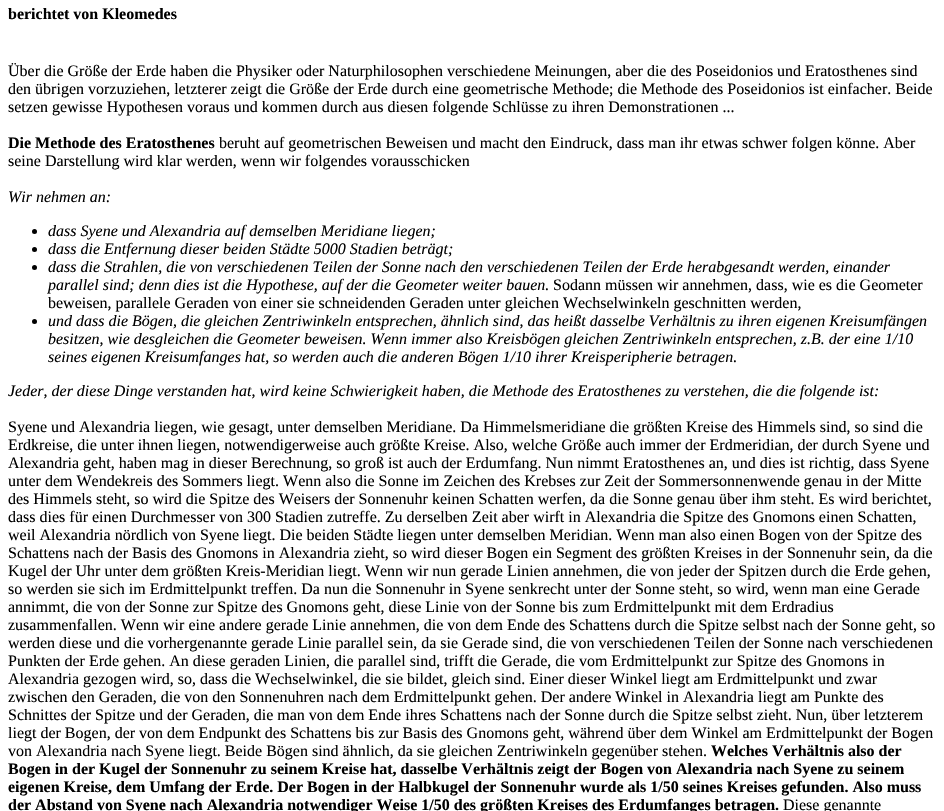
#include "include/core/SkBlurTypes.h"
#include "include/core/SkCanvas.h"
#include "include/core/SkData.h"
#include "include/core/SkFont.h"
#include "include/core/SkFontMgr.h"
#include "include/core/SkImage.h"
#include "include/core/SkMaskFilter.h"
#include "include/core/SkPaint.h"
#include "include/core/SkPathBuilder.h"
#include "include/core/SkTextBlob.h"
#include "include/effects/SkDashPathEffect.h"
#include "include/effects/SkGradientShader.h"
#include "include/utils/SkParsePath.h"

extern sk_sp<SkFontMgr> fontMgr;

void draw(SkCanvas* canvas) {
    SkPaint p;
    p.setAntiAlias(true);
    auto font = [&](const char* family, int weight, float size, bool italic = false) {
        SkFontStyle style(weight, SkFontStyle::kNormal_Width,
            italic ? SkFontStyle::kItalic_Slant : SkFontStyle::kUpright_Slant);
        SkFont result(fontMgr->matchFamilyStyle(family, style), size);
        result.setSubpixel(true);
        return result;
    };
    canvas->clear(0xFFFFFFFF);
    auto font1 = font("Liberation Serif", 700, 16);
    p.setColor(0xFF000000);
    canvas->drawString("berichtet von Kleomedes", 8, 19, font1, p);
    auto font2 = font("Liberation Serif", 400, 16);
    {
        const struct { const char* s; float x, y; } items[] = {
            {"Über die Größe der Erde haben die Physiker oder Naturphilosophen verschiedene Meinungen, aber die des Poseidonios und Eratosthenes sind", 8, 76},
            {"den übrigen vorzuziehen, letzterer zeigt die Größe der Erde durch eine geometrische Methode; die Methode des Poseidonios ist einfacher. Beide", 8, 94},
            {"setzen gewisse Hypothesen voraus und kommen durch aus diesen folgende Schlüsse zu ihren Demonstrationen ...", 8, 112},
        };
        for (auto [s, x, y] : items) {
            canvas->drawString(s, x, y, font2, p);
        }
    }
    canvas->drawString("Die Methode des Eratosthenes", 8, 148, font1, p);
    canvas->drawString("beruht auf geometrischen Beweisen und macht den Eindruck, dass man ihr etwas schwer folgen könne. Aber", 219, 148, font2, p);
    canvas->drawString("seine Darstellung wird klar werden, wenn wir folgendes vorausschicken", 8, 166, font2, p);
    auto font3 = font("Liberation Serif", 400, 16, true);
    canvas->drawString("Wir nehmen an:", 8, 202, font3, p);
    canvas->drawCircle(34.5f, 231.5f, 2.5f, p);
    canvas->drawString("dass Syene und Alexandria auf demselben Meridiane liegen;", 48, 236, font3, p);
    canvas->drawCircle(34.5f, 249.5f, 2.5f, p);
    canvas->drawString("dass die Entfernung dieser beiden Städte 5000 Stadien beträgt;", 48, 254, font3, p);
    canvas->drawCircle(34.5f, 267.5f, 2.5f, p);
    canvas->drawString("dass die Strahlen, die von verschiedenen Teilen der Sonne nach den verschiedenen Teilen der Erde herabgesandt werden, einander", 48, 272, font3, p);
    canvas->drawString("parallel sind; denn dies ist die Hypothese, auf der die Geometer weiter bauen.", 48, 290, font3, p);
    canvas->drawString("Sodann müssen wir annehmen, dass, wie es die Geometer", 553, 290, font2, p);
    canvas->drawString("beweisen, parallele Geraden von einer sie schneidenden Geraden unter gleichen Wechselwinkeln geschnitten werden,", 48, 308, font2, p);
    canvas->drawCircle(34.5f, 321.5f, 2.5f, p);
    {
        const struct { const char* s; float x, y; } items[] = {
            {"und dass die Bögen, die gleichen Zentriwinkeln entsprechen, ähnlich sind, das heißt dasselbe Verhältnis zu ihren eigenen Kreisumfängen", 48, 326},
            {"besitzen, wie desgleichen die Geometer beweisen. Wenn immer also Kreisbögen gleichen Zentriwinkeln entsprechen, z.B. der eine 1/10", 48, 344},
            {"seines eigenen Kreisumfanges hat, so werden auch die anderen Bögen 1/10 ihrer Kreisperipherie betragen.", 48, 362},
            {"Jeder, der diese Dinge verstanden hat, wird keine Schwierigkeit haben, die Methode des Eratosthenes zu verstehen, die die folgende ist:", 8, 396},
        };
        for (auto [s, x, y] : items) {
            canvas->drawString(s, x, y, font3, p);
        }
    }
    {
        const struct { const char* s; float x, y; } items[] = {
            {"Syene und Alexandria liegen, wie gesagt, unter demselben Meridiane. Da Himmelsmeridiane die größten Kreise des Himmels sind, so sind die", 8, 432},
            {"Erdkreise, die unter ihnen liegen, notwendigerweise auch größte Kreise. Also, welche Größe auch immer der Erdmeridian, der durch Syene und", 8, 450},
            {"Alexandria geht, haben mag in dieser Berechnung, so groß ist auch der Erdumfang. Nun nimmt Eratosthenes an, und dies ist richtig, dass Syene", 8, 468},
            {"unter dem Wendekreis des Sommers liegt. Wenn also die Sonne im Zeichen des Krebses zur Zeit der Sommersonnenwende genau in der Mitte", 8, 486},
            {"des Himmels steht, so wird die Spitze des Weisers der Sonnenuhr keinen Schatten werfen, da die Sonne genau über ihm steht. Es wird berichtet,", 8, 504},
            {"dass dies für einen Durchmesser von 300 Stadien zutreffe. Zu derselben Zeit aber wirft in Alexandria die Spitze des Gnomons einen Schatten,", 8, 522},
            {"weil Alexandria nördlich von Syene liegt. Die beiden Städte liegen unter demselben Meridian. Wenn man also einen Bogen von der Spitze des", 8, 540},
            {"Schattens nach der Basis des Gnomons in Alexandria zieht, so wird dieser Bogen ein Segment des größten Kreises in der Sonnenuhr sein, da die", 8, 558},
            {"Kugel der Uhr unter dem größten Kreis-Meridian liegt. Wenn wir nun gerade Linien annehmen, die von jeder der Spitzen durch die Erde gehen,", 8, 576},
            {"so werden sie sich im Erdmittelpunkt treffen. Da nun die Sonnenuhr in Syene senkrecht unter der Sonne steht, so wird, wenn man eine Gerade", 8, 594},
            {"annimmt, die von der Sonne zur Spitze des Gnomons geht, diese Linie von der Sonne bis zum Erdmittelpunkt mit dem Erdradius", 8, 612},
            {"zusammenfallen. Wenn wir eine andere gerade Linie annehmen, die von dem Ende des Schattens durch die Spitze selbst nach der Sonne geht, so", 8, 630},
            {"werden diese und die vorhergenannte gerade Linie parallel sein, da sie Gerade sind, die von verschiedenen Teilen der Sonne nach verschiedenen", 8, 648},
            {"Punkten der Erde gehen. An diese geraden Linien, die parallel sind, trifft die Gerade, die vom Erdmittelpunkt zur Spitze des Gnomons in", 8, 666},
            {"Alexandria gezogen wird, so, dass die Wechselwinkel, die sie bildet, gleich sind. Einer dieser Winkel liegt am Erdmittelpunkt und zwar", 8, 684},
            {"zwischen den Geraden, die von den Sonnenuhren nach dem Erdmittelpunkt gehen. Der andere Winkel in Alexandria liegt am Punkte des", 8, 702},
            {"Schnittes der Spitze und der Geraden, die man von dem Ende ihres Schattens nach der Sonne durch die Spitze selbst zieht. Nun, über letzterem", 8, 720},
            {"liegt der Bogen, der von dem Endpunkt des Schattens bis zur Basis des Gnomons geht, während über dem Winkel am Erdmittelpunkt der Bogen", 8, 738},
            {"von Alexandria nach Syene liegt. Beide Bögen sind ähnlich, da sie gleichen Zentriwinkeln gegenüber stehen.", 8, 756},
        };
        for (auto [s, x, y] : items) {
            canvas->drawString(s, x, y, font2, p);
        }
    }
    {
        const struct { const char* s; float x, y; } items[] = {
            {"Welches Verhältnis also der", 711, 756},
            {"Bogen in der Kugel der Sonnenuhr zu seinem Kreise hat, dasselbe Verhältnis zeigt der Bogen von Alexandria nach Syene zu seinem", 8, 774},
            {"eigenen Kreise, dem Umfang der Erde. Der Bogen in der Halbkugel der Sonnenuhr wurde als 1/50 seines Kreises gefunden. Also muss", 8, 792},
            {"der Abstand von Syene nach Alexandria notwendiger Weise 1/50 des größten Kreises des Erdumfanges betragen.", 8, 810},
        };
        for (auto [s, x, y] : items) {
            canvas->drawString(s, x, y, font1, p);
        }
    }
    canvas->drawString("Diese genannte", 783, 810, font2, p);
}
